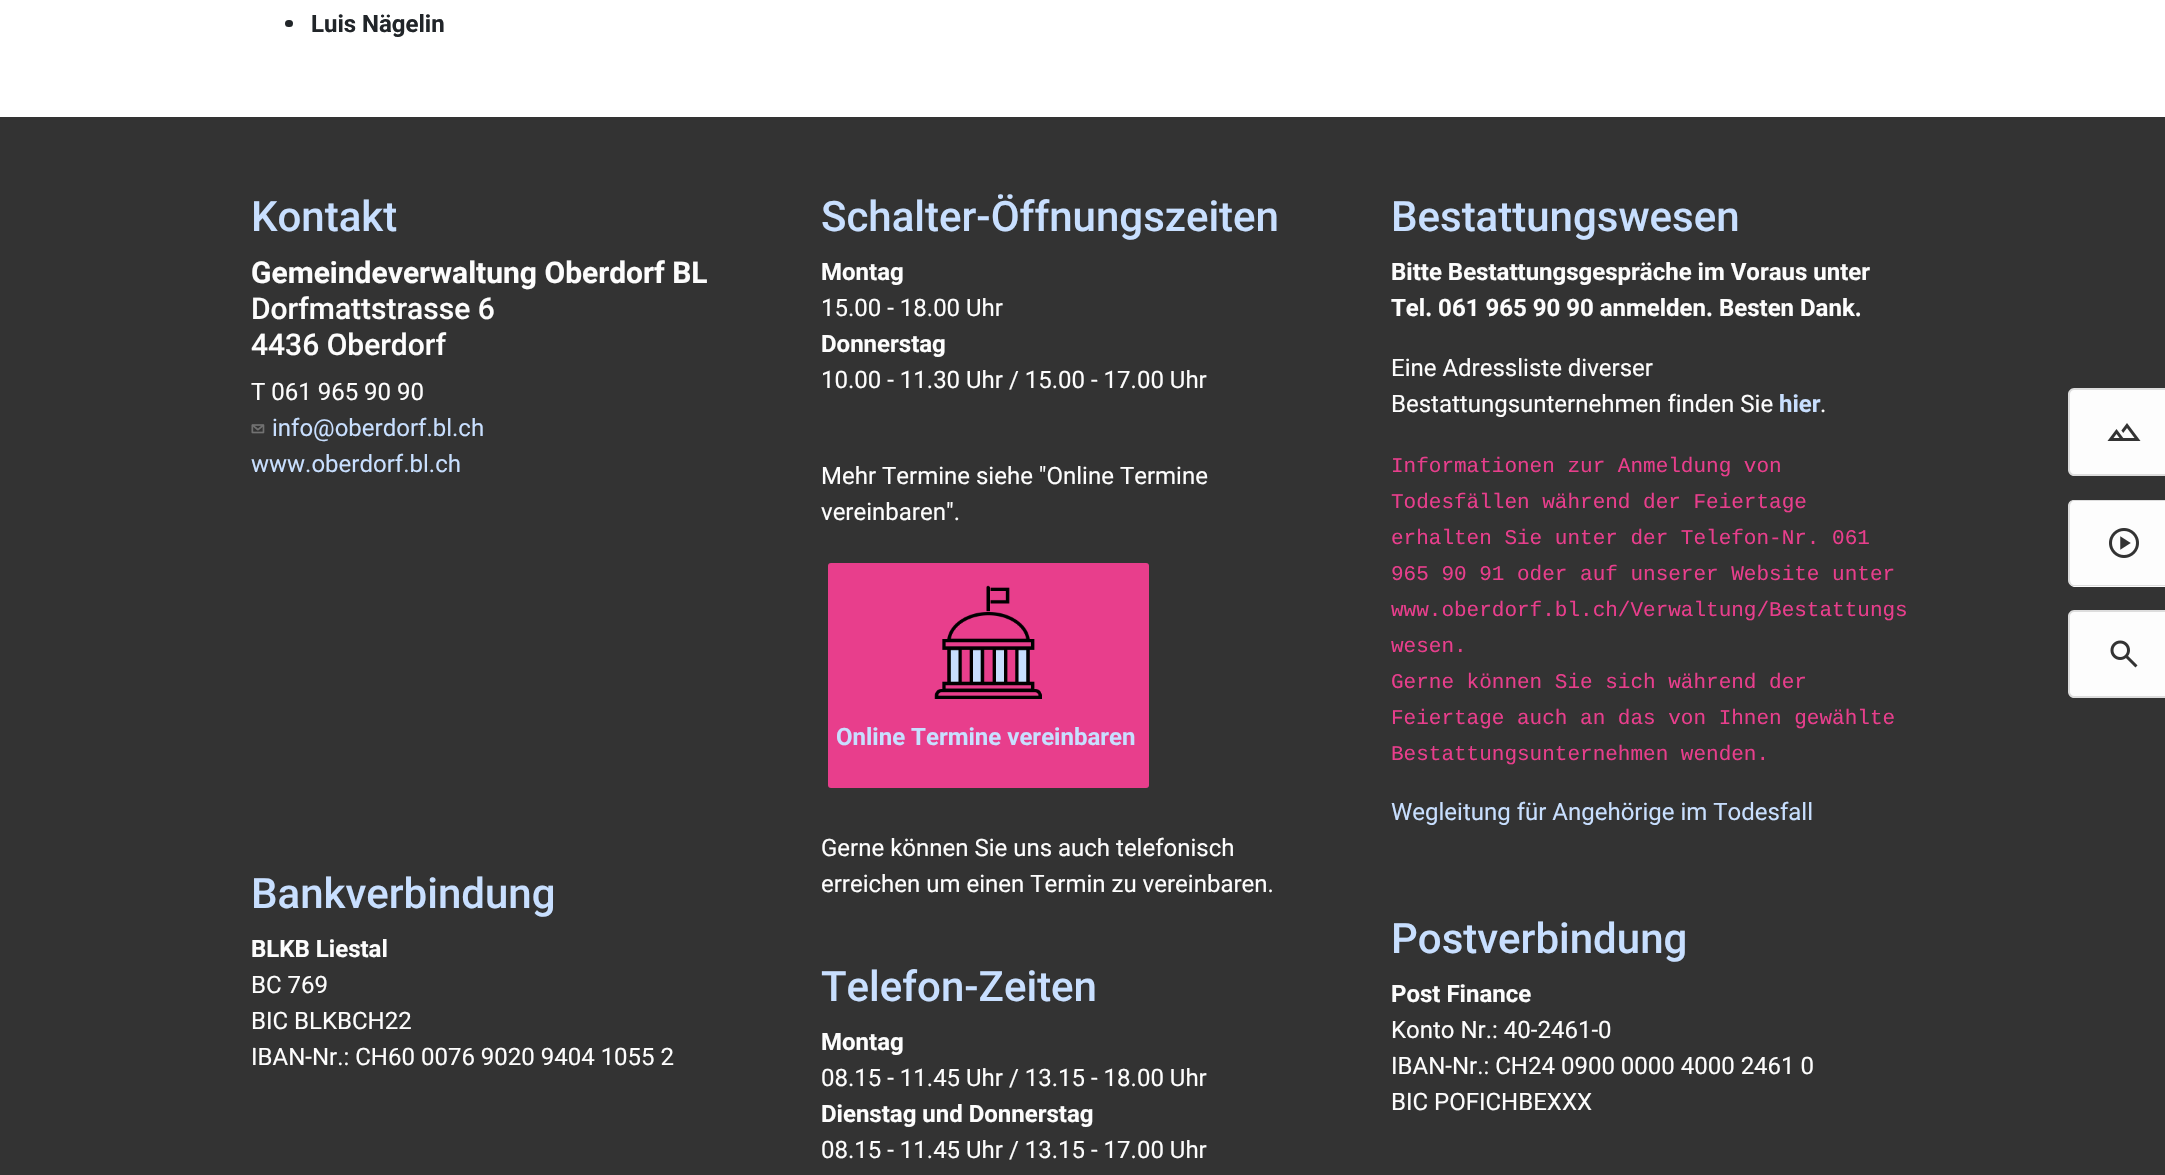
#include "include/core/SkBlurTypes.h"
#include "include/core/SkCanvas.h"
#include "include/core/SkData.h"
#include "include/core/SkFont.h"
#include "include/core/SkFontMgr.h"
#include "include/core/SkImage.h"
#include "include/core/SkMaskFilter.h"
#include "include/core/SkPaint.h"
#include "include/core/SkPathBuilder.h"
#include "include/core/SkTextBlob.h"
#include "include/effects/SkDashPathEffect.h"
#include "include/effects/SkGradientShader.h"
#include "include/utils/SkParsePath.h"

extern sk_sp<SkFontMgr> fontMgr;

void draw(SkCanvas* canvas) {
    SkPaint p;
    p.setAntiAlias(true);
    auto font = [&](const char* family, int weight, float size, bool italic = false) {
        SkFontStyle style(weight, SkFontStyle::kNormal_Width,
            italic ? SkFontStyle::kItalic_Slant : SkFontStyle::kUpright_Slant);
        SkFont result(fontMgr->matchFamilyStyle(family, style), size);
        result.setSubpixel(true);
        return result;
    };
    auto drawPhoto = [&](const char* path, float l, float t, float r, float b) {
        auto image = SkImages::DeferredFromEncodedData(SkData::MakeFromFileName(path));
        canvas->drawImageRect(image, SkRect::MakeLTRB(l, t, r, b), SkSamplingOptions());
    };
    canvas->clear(0xFFFFFFFF);
    p.setColor(0xFF212529);
    canvas->drawRoundRect(SkRect::MakeLTRB(285, 20, 293, 27), 3.5f, 3.5f, p);
    auto font1 = font("Roboto", 700, 24);
    canvas->drawString("Luis Nägelin", 311, 32, font1, p);
    p.setColor(0xFF333333);
    canvas->drawRect(SkRect::MakeLTRB(0, 117, 2165, 1175), p);
    auto font2 = font("Roboto", 500, 42);
    p.setColor(0xFFC8DFFF);
    canvas->drawString("Kontakt", 251, 231, font2, p);
    auto font3 = font("Roboto", 700, 30);
    p.setColor(0xFFFDFDFD);
    canvas->drawString("Gemeindeverwaltung Oberdorf BL", 251, 283, font3, p);
    auto font4 = font("Roboto", 500, 30);
    canvas->drawString("Dorfmattstrasse 6", 251, 319, font4, p);
    canvas->drawString("4436 Oberdorf", 251, 355, font4, p);
    auto font5 = font("Roboto", 400, 24);
    canvas->drawString("T 061 965 90 90", 251, 400, font5, p);
    drawPhoto("media/1.png", 251, 424, 265, 434);
    p.setColor(0xFFC8DFFF);
    canvas->drawString("info@oberdorf.bl.ch", 272, 436, font5, p);
    canvas->drawString("www.oberdorf.bl.ch", 251, 472, font5, p);
    canvas->drawString("Bankverbindung", 251, 908, font2, p);
    p.setColor(0xFFFDFDFD);
    canvas->drawString("BLKB Liestal", 251, 957, font1, p);
    {
        const struct { const char* s; float x, y; } items[] = {
            {"BC 769", 251, 993},
            {"BIC BLKBCH22", 251, 1029},
            {"IBAN-Nr.: CH60 0076 9020 9404 1055 2", 251, 1065},
        };
        for (auto [s, x, y] : items) {
            canvas->drawString(s, x, y, font5, p);
        }
    }
    p.setColor(0xFFC8DFFF);
    canvas->drawString("Schalter-Öffnungszeiten", 821, 231, font2, p);
    p.setColor(0xFFFDFDFD);
    canvas->drawString("Montag", 821, 280, font1, p);
    canvas->drawString("15.00 - 18.00 Uhr", 821, 316, font5, p);
    canvas->drawString("Donnerstag", 821, 352, font1, p);
    {
        const struct { const char* s; float x, y; } items[] = {
            {"10.00 - 11.30 Uhr / 15.00 - 17.00 Uhr", 821, 388},
            {"Mehr Termine siehe \"Online Termine", 821, 484},
            {"vereinbaren\".", 821, 520},
        };
        for (auto [s, x, y] : items) {
            canvas->drawString(s, x, y, font5, p);
        }
    }
    p.setColor(0xFFE83E8C);
    canvas->drawRoundRect(SkRect::MakeLTRB(828, 563, 1149, 788), 3, 3, p);
    drawPhoto("media/2.png", 934, 585, 1042, 699);
    p.setColor(0xFFC8DFFF);
    canvas->drawString("Online Termine vereinbaren", 836, 745, font1, p);
    p.setColor(0xFFFDFDFD);
    canvas->drawString("Gerne können Sie uns auch telefonisch", 821, 856, font5, p);
    canvas->drawString("erreichen um einen Termin zu vereinbaren.", 821, 892, font5, p);
    p.setColor(0xFFC8DFFF);
    canvas->drawString("Telefon-Zeiten", 821, 1001, font2, p);
    p.setColor(0xFFFDFDFD);
    canvas->drawString("Montag", 821, 1050, font1, p);
    canvas->drawString("08.15 - 11.45 Uhr / 13.15 - 18.00 Uhr", 821, 1086, font5, p);
    canvas->drawString("Dienstag und Donnerstag", 821, 1122, font1, p);
    canvas->drawString("08.15 - 11.45 Uhr / 13.15 - 17.00 Uhr", 821, 1158, font5, p);
    p.setColor(0xFFC8DFFF);
    canvas->drawString("Bestattungswesen", 1391, 231, font2, p);
    p.setColor(0xFFFDFDFD);
    canvas->drawString("Bitte Bestattungsgespräche im Voraus unter", 1391, 280, font1, p);
    canvas->drawString("Tel. 061 965 90 90 anmelden. Besten Dank.", 1391, 316, font1, p);
    canvas->drawString("Eine Adressliste diverser", 1391, 376, font5, p);
    canvas->drawString("Bestattungsunternehmen finden Sie", 1391, 412, font5, p);
    p.setColor(0xFFC8DFFF);
    canvas->drawString("hier", 1779, 412, font1, p);
    p.setColor(0xFFFDFDFD);
    canvas->drawString(".", 1820, 412, font5, p);
    auto font6 = font("Liberation Mono", 400, 21);
    p.setColor(0xFFE83E8C);
    {
        const struct { const char* s; float x, y; } items[] = {
            {"Informationen zur Anmeldung von", 1391, 472},
            {"Todesfällen während der Feiertage", 1391, 508},
            {"erhalten Sie unter der Telefon-Nr. 061", 1391, 544},
            {"965 90 91 oder auf unserer Website unter", 1391, 580},
            {"www.oberdorf.bl.ch/Verwaltung/Bestattungs", 1391, 616},
            {"wesen.", 1391, 652},
            {"Gerne können Sie sich während der", 1391, 688},
            {"Feiertage auch an das von Ihnen gewählte", 1391, 724},
            {"Bestattungsunternehmen wenden.", 1391, 760},
        };
        for (auto [s, x, y] : items) {
            canvas->drawString(s, x, y, font6, p);
        }
    }
    p.setColor(0xFFC8DFFF);
    canvas->drawString("Wegleitung für Angehörige im Todesfall", 1391, 820, font5, p);
    canvas->drawString("Postverbindung", 1391, 953, font2, p);
    p.setColor(0xFFFDFDFD);
    canvas->drawString("Post Finance", 1391, 1002, font1, p);
    {
        const struct { const char* s; float x, y; } items[] = {
            {"Konto Nr.: 40-2461-0", 1391, 1038},
            {"IBAN-Nr.: CH24 0900 0000 4000 2461 0", 1391, 1074},
            {"BIC POFICHBEXXX", 1391, 1110},
        };
        for (auto [s, x, y] : items) {
            canvas->drawString(s, x, y, font5, p);
        }
    }
    canvas->drawPath(SkPathBuilder().moveTo(2075, 389).lineTo(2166, 389).lineTo(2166, 476).lineTo(2075, 476).cubicTo(2071.5f, 476, 2069, 473.5f, 2069, 470).lineTo(2069, 395).cubicTo(2069, 391.5f, 2071.5f, 389, 2075, 389).close().detach(), p);
    p.setColor(0xFFDDDDDD);
    canvas->drawPath(SkPathBuilder(SkPathFillType::kEvenOdd).moveTo(2074, 388).lineTo(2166, 388).lineTo(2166, 476).lineTo(2074, 476).cubicTo(2071, 476, 2068, 473, 2068, 470).lineTo(2068, 394).cubicTo(2068, 391, 2071, 388, 2074, 388).close().moveTo(2074, 390).lineTo(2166, 390).lineTo(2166, 474).lineTo(2074, 474).cubicTo(2072, 474, 2070, 472, 2070, 470).lineTo(2070, 394).cubicTo(2070, 392, 2072, 390, 2074, 390).close().detach(), p);
    drawPhoto("media/3.png", 2107, 423, 2141, 441);
    p.setColor(0xFFFDFDFD);
    canvas->drawPath(SkPathBuilder().moveTo(2075, 500).lineTo(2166, 500).lineTo(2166, 587).lineTo(2075, 587).cubicTo(2071.5f, 587, 2069, 584.5f, 2069, 581).lineTo(2069, 506).cubicTo(2069, 502.5f, 2071.5f, 500, 2075, 500).close().detach(), p);
    p.setColor(0xFFDDDDDD);
    canvas->drawPath(SkPathBuilder(SkPathFillType::kEvenOdd).moveTo(2074, 500).lineTo(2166, 500).lineTo(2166, 586).lineTo(2074, 586).cubicTo(2071, 586, 2068, 584, 2068, 580).lineTo(2068, 506).cubicTo(2068, 502, 2071, 500, 2074, 500).close().moveTo(2074, 501).lineTo(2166, 501).lineTo(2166, 585).lineTo(2074, 585).cubicTo(2072, 585, 2070, 583, 2070, 580).lineTo(2070, 506).cubicTo(2070, 503, 2072, 501, 2074, 501).close().detach(), p);
    drawPhoto("media/4.png", 2109, 528, 2139, 558);
    p.setColor(0xFFFDFDFD);
    canvas->drawPath(SkPathBuilder().moveTo(2075, 611).lineTo(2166, 611).lineTo(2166, 698).lineTo(2075, 698).cubicTo(2071.5f, 698, 2069, 695.5f, 2069, 692).lineTo(2069, 617).cubicTo(2069, 613.5f, 2071.5f, 611, 2075, 611).close().detach(), p);
    p.setColor(0xFFDDDDDD);
    canvas->drawPath(SkPathBuilder(SkPathFillType::kEvenOdd).moveTo(2074, 610).lineTo(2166, 610).lineTo(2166, 698).lineTo(2074, 698).cubicTo(2071, 698, 2068, 695, 2068, 692).lineTo(2068, 616).cubicTo(2068, 613, 2071, 610, 2074, 610).close().moveTo(2074, 612).lineTo(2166, 612).lineTo(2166, 696).lineTo(2074, 696).cubicTo(2072, 696, 2070, 694, 2070, 692).lineTo(2070, 616).cubicTo(2070, 614, 2072, 612, 2074, 612).close().detach(), p);
    drawPhoto("media/5.png", 2110, 640, 2138, 668);
}
